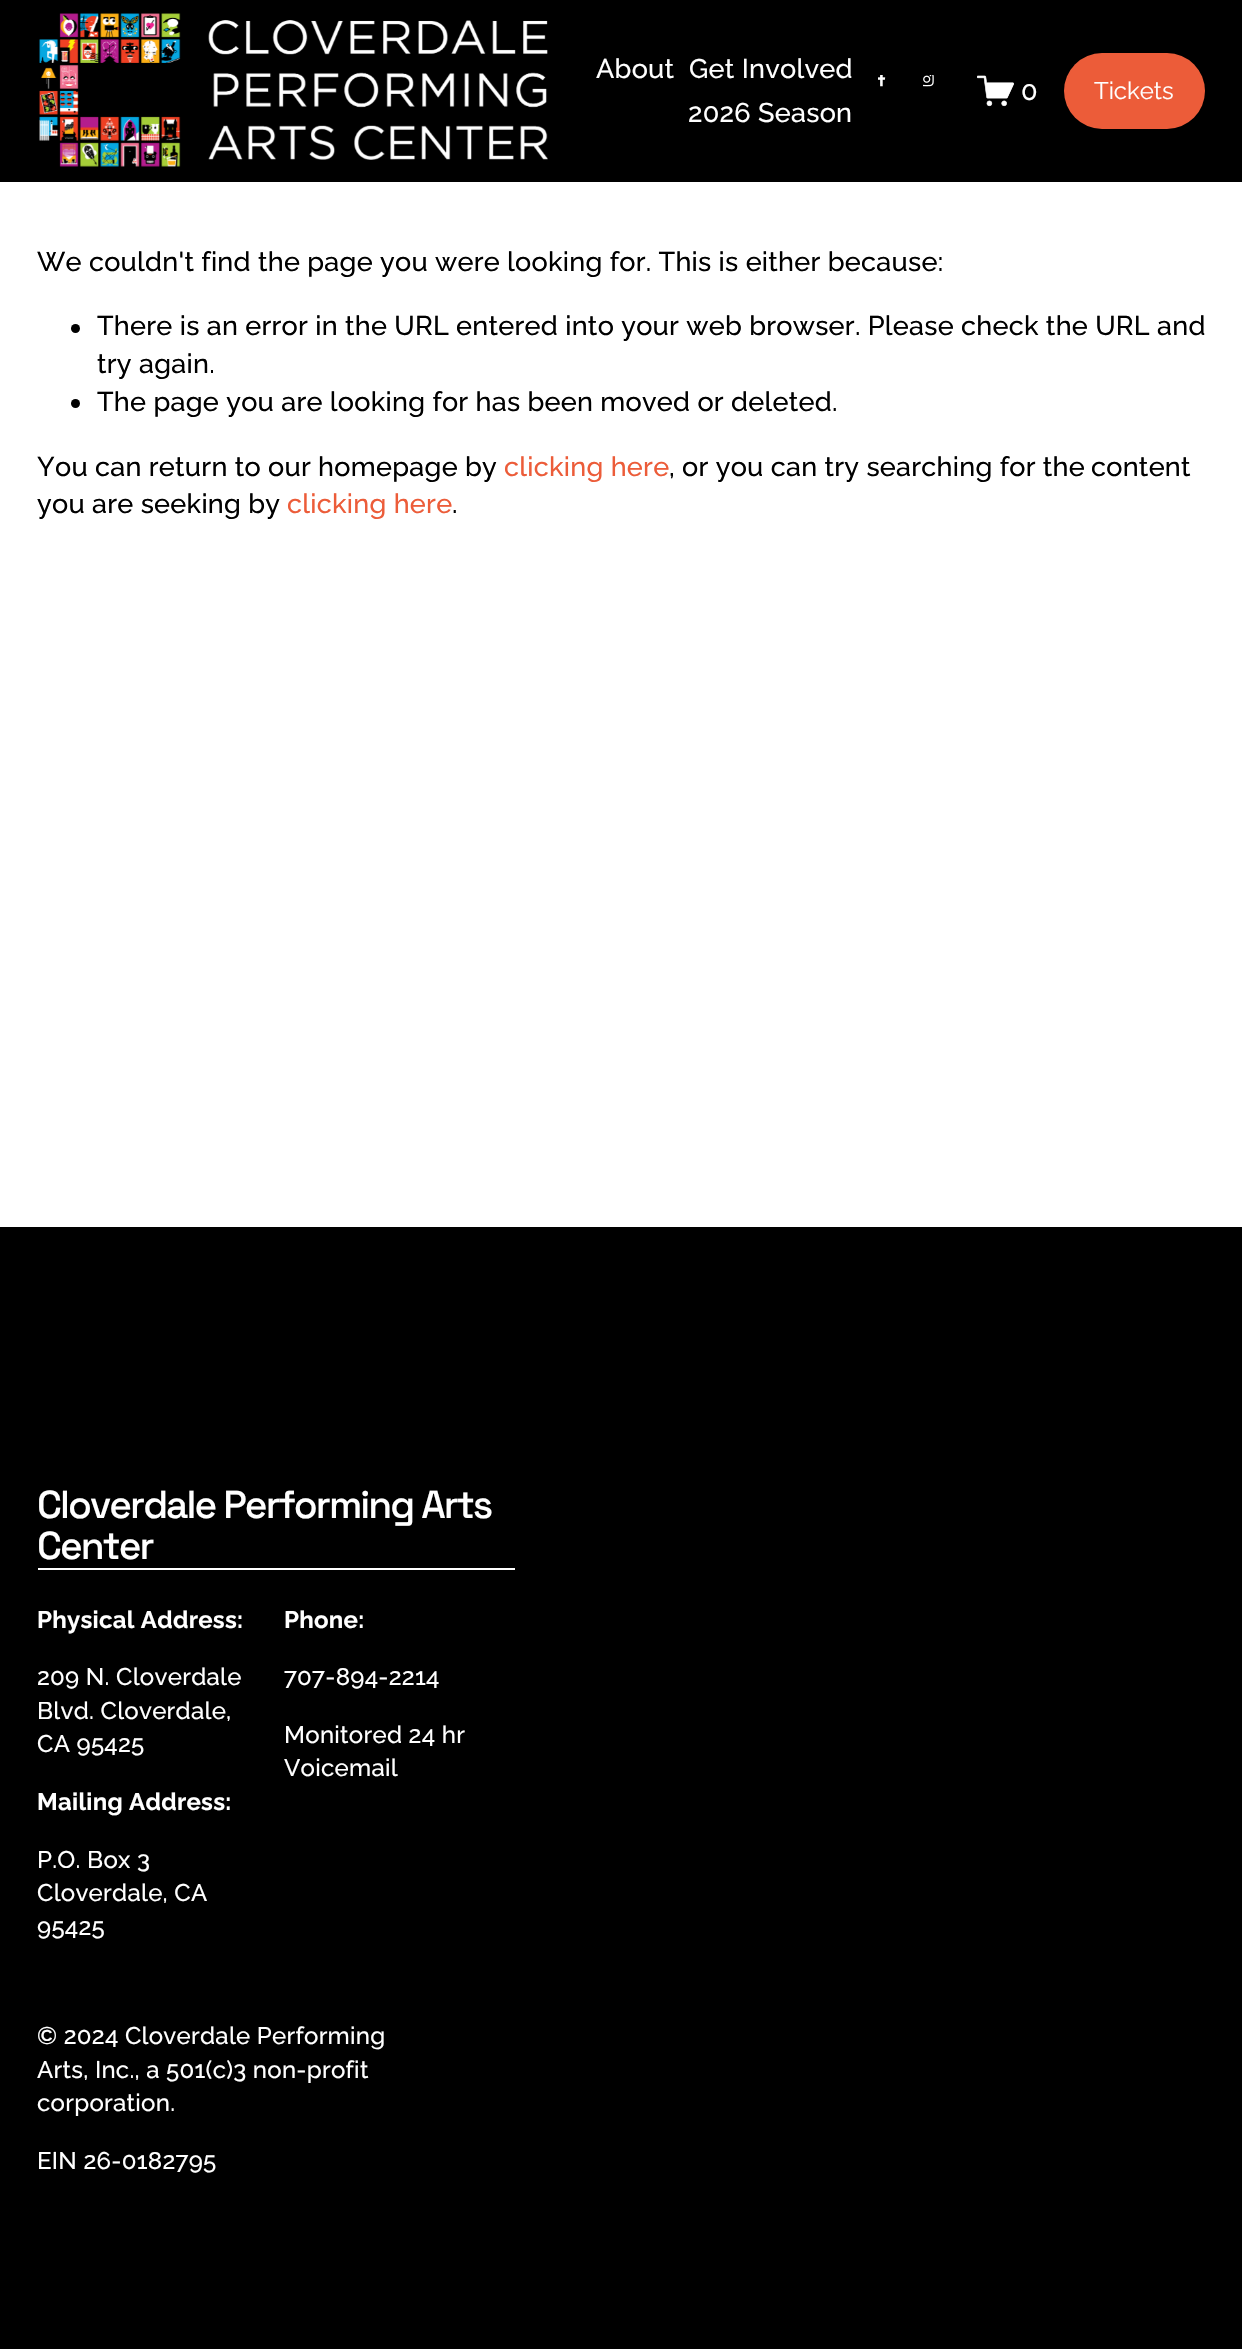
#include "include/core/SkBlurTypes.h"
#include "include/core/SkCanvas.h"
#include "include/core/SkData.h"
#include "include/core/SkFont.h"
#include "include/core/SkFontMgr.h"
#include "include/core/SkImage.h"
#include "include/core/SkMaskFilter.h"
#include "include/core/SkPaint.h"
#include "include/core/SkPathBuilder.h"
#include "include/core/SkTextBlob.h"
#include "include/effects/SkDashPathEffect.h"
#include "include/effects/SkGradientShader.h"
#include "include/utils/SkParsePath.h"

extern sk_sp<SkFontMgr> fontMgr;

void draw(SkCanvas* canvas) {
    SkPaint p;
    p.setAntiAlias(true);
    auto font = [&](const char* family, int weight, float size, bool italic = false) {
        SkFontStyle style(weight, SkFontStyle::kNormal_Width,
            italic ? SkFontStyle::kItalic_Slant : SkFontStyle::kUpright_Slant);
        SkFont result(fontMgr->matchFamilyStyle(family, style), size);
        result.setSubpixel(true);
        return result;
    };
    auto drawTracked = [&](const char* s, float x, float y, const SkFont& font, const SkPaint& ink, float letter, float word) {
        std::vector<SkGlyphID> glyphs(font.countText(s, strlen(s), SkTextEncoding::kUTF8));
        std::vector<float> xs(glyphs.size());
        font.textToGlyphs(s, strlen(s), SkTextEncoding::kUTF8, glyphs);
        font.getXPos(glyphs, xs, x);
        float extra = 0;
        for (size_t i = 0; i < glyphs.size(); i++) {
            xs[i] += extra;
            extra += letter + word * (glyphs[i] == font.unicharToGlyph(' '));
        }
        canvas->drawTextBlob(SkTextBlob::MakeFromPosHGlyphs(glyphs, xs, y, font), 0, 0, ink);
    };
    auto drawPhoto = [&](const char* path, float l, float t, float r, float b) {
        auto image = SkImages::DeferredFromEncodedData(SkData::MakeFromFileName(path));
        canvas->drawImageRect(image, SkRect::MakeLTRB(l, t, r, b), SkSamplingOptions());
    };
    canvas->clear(0xFFFFFFFF);
    p.setColor(0xFF000000);
    canvas->drawRect(SkRect::MakeLTRB(0, 0, 1242, 182), p);
    drawPhoto("media/1.png", 39, 13, 548, 167);
    auto font1 = font("Raleway", 500, 27);
    p.setColor(0xFFFFFFFF);
    {
        const struct { const char* s; float x, y; } items[] = {
            {"About", 596, 78},
            {"Get Involved", 689, 78},
            {"2026 Season", 688, 122},
        };
        for (auto [s, x, y] : items) {
            drawTracked(s, x, y, font1, p, 0.27f, 0);
        }
    }
    drawPhoto("media/2.png", 878, 75, 886, 87);
    drawPhoto("media/3.png", 923, 75, 934, 87);
    drawPhoto("media/4.png", 977, 75, 1014, 107);
    drawTracked("0", 1021, 100, font1, p, 0.27f, 0);
    p.setColor(0xFFEC5C39);
    canvas->drawRoundRect(SkRect::MakeLTRB(1064, 53, 1205, 129), 38, 38, p);
    auto font2 = font("Raleway", 400, 24);
    p.setColor(0xFFFFFFFF);
    canvas->drawString("Tickets", 1094, 99, font2, p);
    p.setColor(0xFF000000);
    drawTracked("We couldn't find the page you were looking for. This is either because:", 37, 271, font1, p, 0.27f, 0);
    canvas->drawCircle(75.5f, 328.5f, 4.5f, p);
    drawTracked("There is an error in the URL entered into your web browser. Please check the URL and", 97, 335, font1, p, 0.27f, 0);
    drawTracked("try again.", 97, 373, font1, p, 0.27f, 0);
    canvas->drawCircle(75.5f, 403.5f, 4.5f, p);
    drawTracked("The page you are looking for has been moved or deleted.", 97, 411, font1, p, 0.27f, 0);
    drawTracked("You can return to our homepage by", 37, 476, font1, p, 0.27f, 0);
    p.setColor(0xFFEC5C39);
    drawTracked("clicking here", 504, 476, font1, p, 0.27f, 0);
    p.setColor(0xFF000000);
    {
        const struct { const char* s; float x, y; } items[] = {
            {", or you can try searching for the", 669, 476},
            {"content", 1091, 476},
            {"you are seeking by", 37, 513},
        };
        for (auto [s, x, y] : items) {
            drawTracked(s, x, y, font1, p, 0.27f, 0);
        }
    }
    p.setColor(0xFFEC5C39);
    drawTracked("clicking here", 287, 513, font1, p, 0.27f, 0);
    p.setColor(0xFF000000);
    drawTracked(".", 452, 513, font1, p, 0.27f, 0);
    canvas->drawRect(SkRect::MakeLTRB(0, 1227, 1242, 2349), p);
    auto font3 = font("Space Grotesk", 500, 38.9f);
    p.setColor(0xFFFFFFFF);
    drawTracked("Cloverdale Performing Arts", 37, 1518, font3, p, -1.95f, 0);
    drawTracked("Center", 37, 1559, font3, p, -1.95f, 0);
    canvas->drawRect(SkRect::MakeLTRB(38, 1568, 515, 1570), p);
    auto font4 = font("Raleway", 700, 24);
    drawTracked("Physical Address:", 37, 1628, font4, p, 0.27f, 0);
    auto font5 = font("Raleway", 500, 24);
    {
        const struct { const char* s; float x, y; } items[] = {
            {"209 N. Cloverdale", 37, 1685},
            {"Blvd. Cloverdale,", 37, 1719},
            {"CA 95425", 37, 1752},
        };
        for (auto [s, x, y] : items) {
            drawTracked(s, x, y, font5, p, 0.27f, 0);
        }
    }
    drawTracked("Mailing Address:", 37, 1810, font4, p, 0.27f, 0);
    {
        const struct { const char* s; float x, y; } items[] = {
            {"P.O. Box 3", 37, 1868},
            {"Cloverdale, CA", 37, 1901},
            {"95425", 37, 1935},
        };
        for (auto [s, x, y] : items) {
            drawTracked(s, x, y, font5, p, 0.27f, 0);
        }
    }
    drawTracked("Phone:", 284, 1628, font4, p, 0.27f, 0);
    {
        const struct { const char* s; float x, y; } items[] = {
            {"707-894-2214", 284, 1685},
            {"Monitored 24 hr", 284, 1743},
            {"Voicemail", 284, 1776},
            {"© 2024 Cloverdale Performing", 37, 2044},
            {"Arts, Inc., a 501(c)3 non-profit", 37, 2078},
            {"corporation.", 37, 2111},
            {"EIN 26-0182795", 37, 2169},
        };
        for (auto [s, x, y] : items) {
            drawTracked(s, x, y, font5, p, 0.27f, 0);
        }
    }
}
